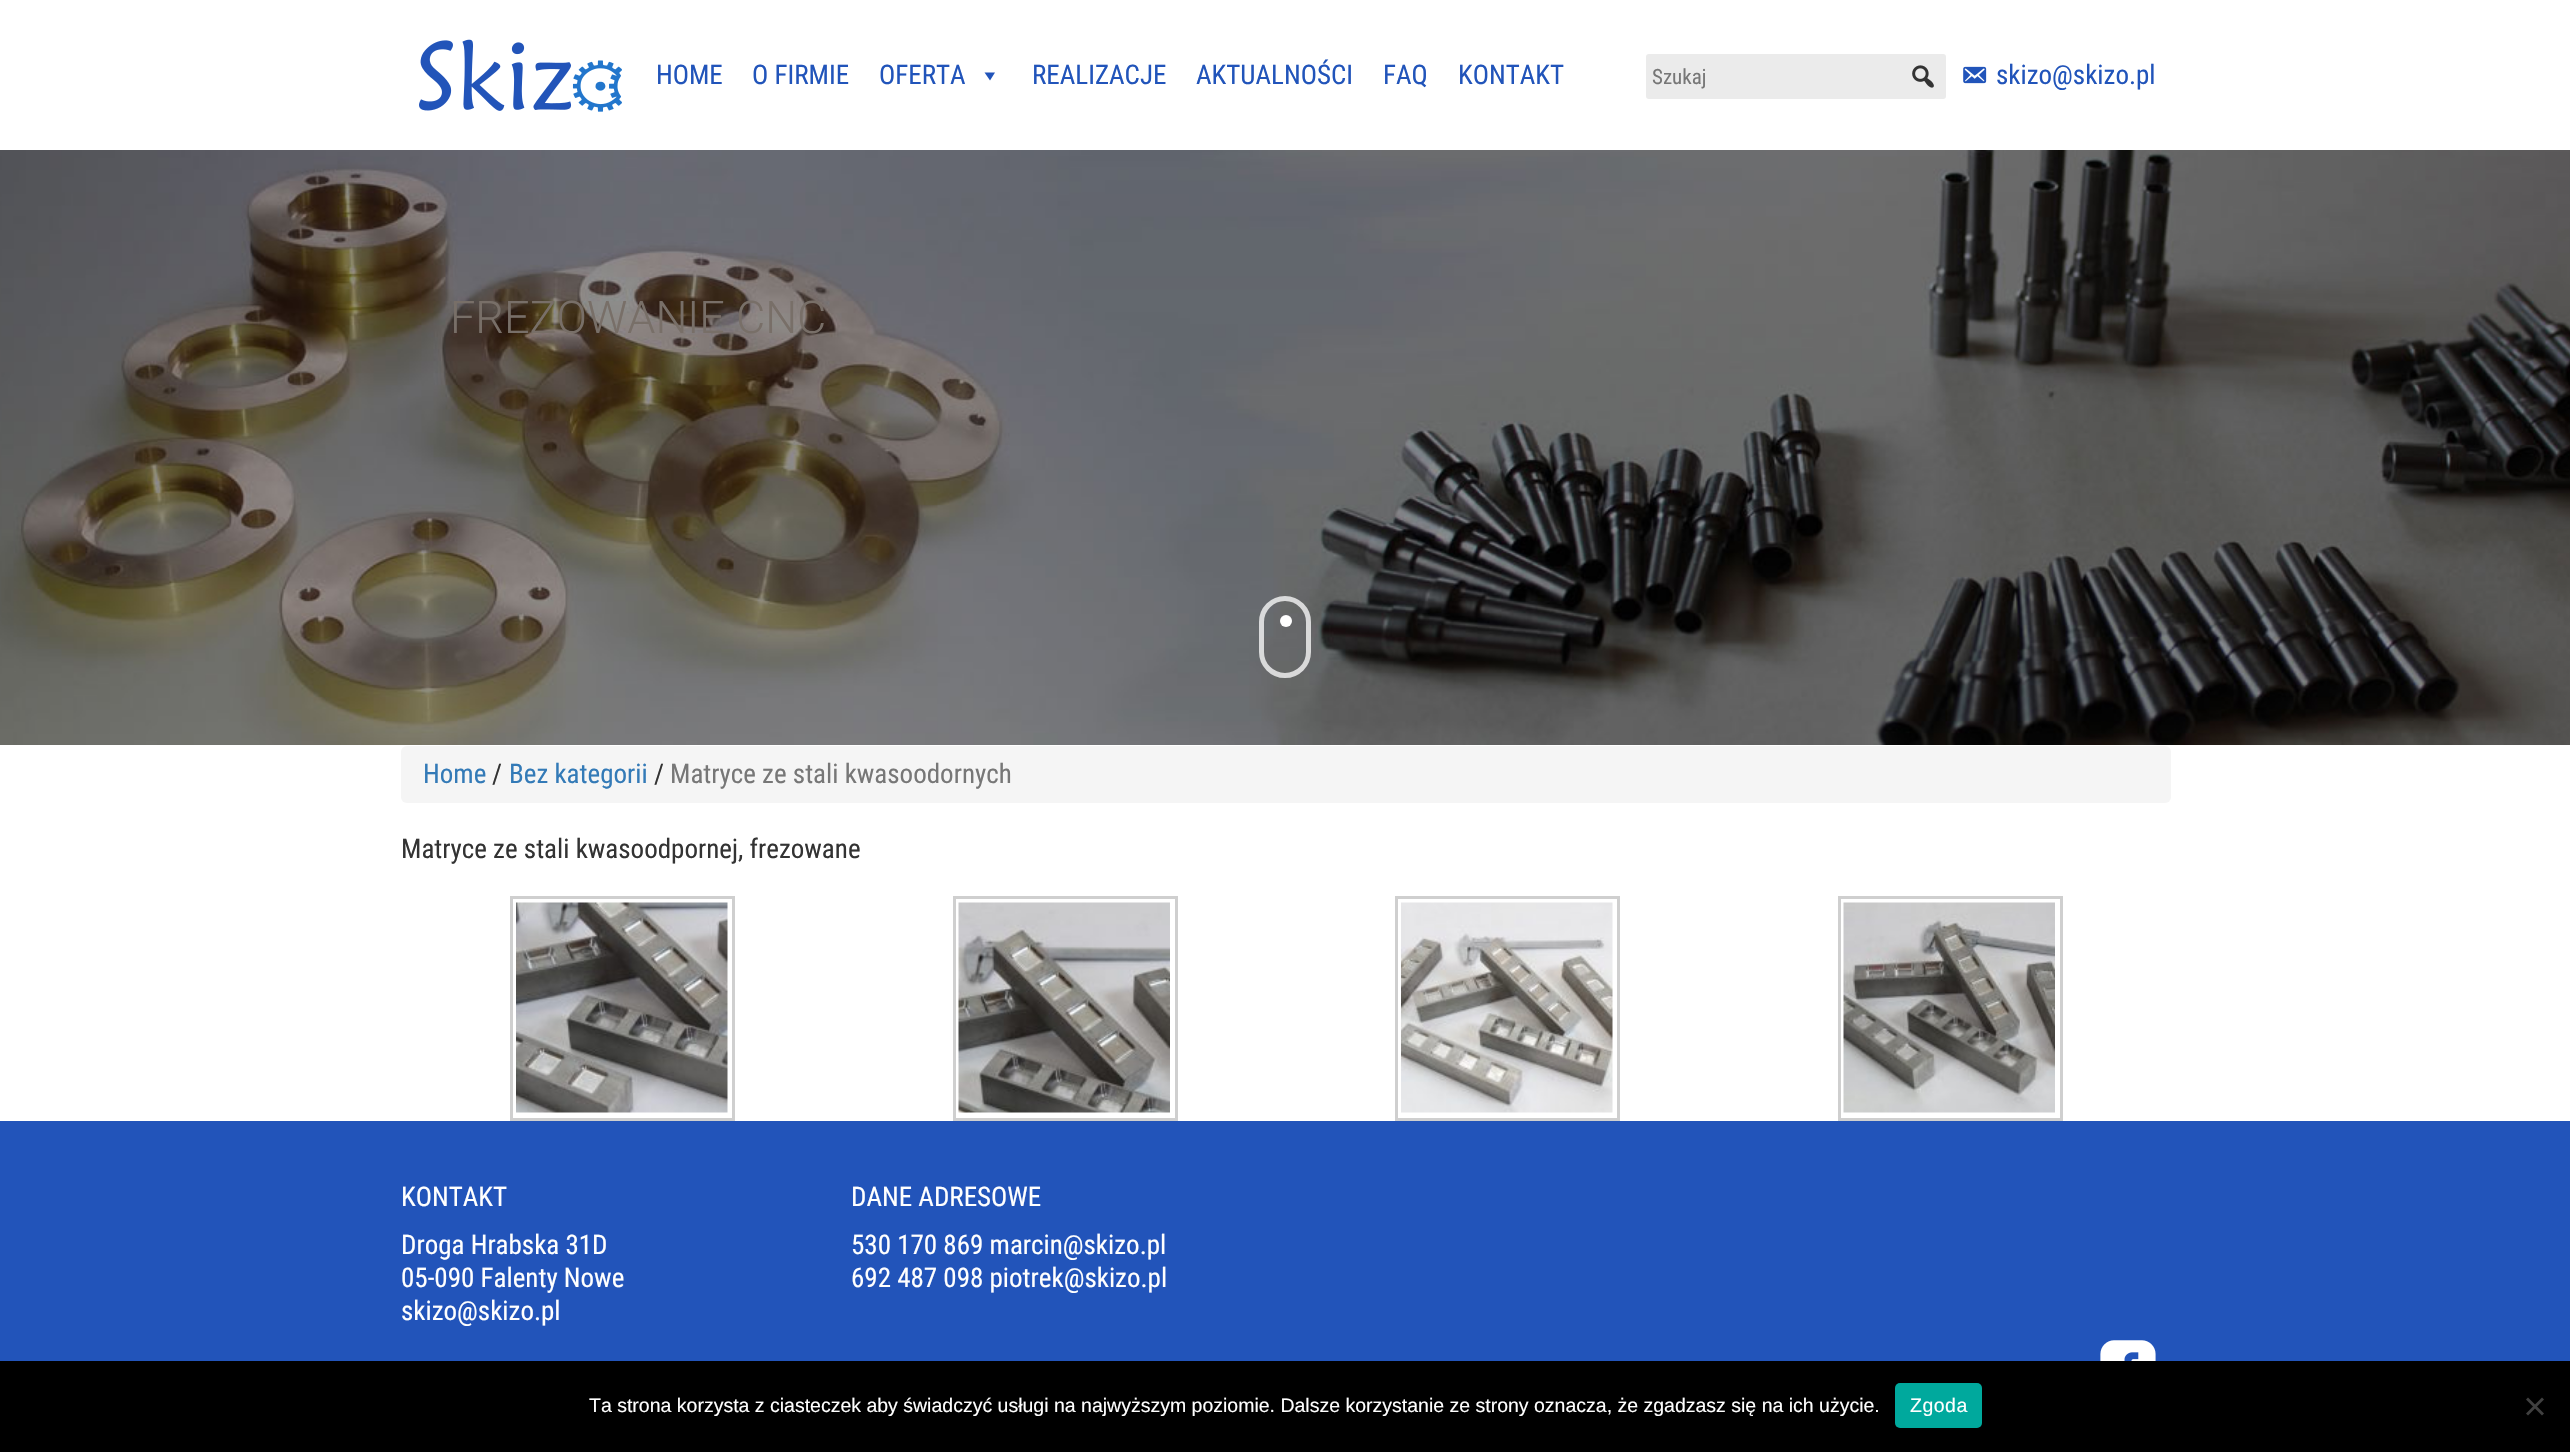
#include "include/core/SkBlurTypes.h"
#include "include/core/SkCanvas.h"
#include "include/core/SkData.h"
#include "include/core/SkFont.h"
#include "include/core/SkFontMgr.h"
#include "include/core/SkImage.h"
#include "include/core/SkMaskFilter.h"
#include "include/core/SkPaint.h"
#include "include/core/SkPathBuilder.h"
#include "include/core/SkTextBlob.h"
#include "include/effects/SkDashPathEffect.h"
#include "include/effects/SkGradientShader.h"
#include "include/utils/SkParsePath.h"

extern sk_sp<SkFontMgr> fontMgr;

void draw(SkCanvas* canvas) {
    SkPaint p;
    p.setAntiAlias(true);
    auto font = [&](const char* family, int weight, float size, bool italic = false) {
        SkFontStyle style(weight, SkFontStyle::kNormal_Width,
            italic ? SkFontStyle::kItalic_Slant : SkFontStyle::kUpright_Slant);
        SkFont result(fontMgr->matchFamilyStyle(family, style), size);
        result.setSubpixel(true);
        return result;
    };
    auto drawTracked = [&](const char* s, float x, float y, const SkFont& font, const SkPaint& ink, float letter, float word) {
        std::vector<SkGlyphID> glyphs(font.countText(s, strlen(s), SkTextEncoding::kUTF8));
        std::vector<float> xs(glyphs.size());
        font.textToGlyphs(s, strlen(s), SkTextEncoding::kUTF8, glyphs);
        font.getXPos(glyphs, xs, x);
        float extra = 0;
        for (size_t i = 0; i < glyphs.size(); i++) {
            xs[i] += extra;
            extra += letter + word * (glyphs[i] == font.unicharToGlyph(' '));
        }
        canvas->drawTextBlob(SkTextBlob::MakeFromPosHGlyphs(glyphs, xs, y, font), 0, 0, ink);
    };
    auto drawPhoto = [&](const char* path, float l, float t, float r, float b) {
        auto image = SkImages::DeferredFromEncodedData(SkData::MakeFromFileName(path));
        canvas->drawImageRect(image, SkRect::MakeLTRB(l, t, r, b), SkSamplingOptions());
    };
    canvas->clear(0xFFFFFFFF);
    drawPhoto("media/1.png", 419, 39, 622, 112);
    auto font1 = font("Roboto Condensed", 400, 27);
    p.setColor(0xFF2154BA);
    {
        const struct { const char* s; float x, y; } items[] = {
            {"HOME", 656, 84},
            {"O FIRMIE", 752, 84},
            {"OFERTA", 879, 84},
        };
        for (auto [s, x, y] : items) {
            canvas->drawString(s, x, y, font1, p);
        }
    }
    canvas->drawPath(SkPathBuilder().moveTo(995, 72.5f).lineTo(990, 80.5f).lineTo(984.5f, 72.5f).close().detach(), p);
    {
        const struct { const char* s; float x, y; } items[] = {
            {"REALIZACJE", 1032, 84},
            {"AKTUALNOŚCI", 1196, 84},
            {"FAQ", 1383, 84},
            {"KONTAKT", 1458, 84},
        };
        for (auto [s, x, y] : items) {
            canvas->drawString(s, x, y, font1, p);
        }
    }
    p.setColor(0xFFEBEBEB);
    canvas->drawRoundRect(SkRect::MakeLTRB(1646, 54, 1946, 99), 3, 3, p);
    auto font2 = font("Roboto Condensed", 400, 21);
    p.setColor(0xFF777777);
    canvas->drawString("Szukaj", 1652, 84, font2, p);
    drawPhoto("media/2.png", 1912, 65, 1934, 88);
    drawPhoto("media/3.png", 1963, 66, 1987, 84);
    p.setColor(0xFF2154BA);
    canvas->drawString("skizo@skizo.pl", 1996, 84, font1, p);
    drawPhoto("media/4.png", 0, 150, 2570, 745);
    auto font3 = font("Roboto", 300, 45);
    p.setColor(0xFF786F68);
    canvas->drawString("FREZOWANIE CNC", 450, 333, font3, p);
    p.setStyle(SkPaint::kStroke_Style);
    p.setStrokeWidth(5);
    p.setColor(0xBFFFFFFF);
    canvas->drawRoundRect(SkRect::MakeLTRB(1261.5f, 598.5f, 1308.5f, 675.5f), 23.5f, 23.5f, p);
    p.setStyle(SkPaint::kFill_Style);
    p.setColor(0xFFFFFFFF);
    canvas->drawCircle(1286, 621, 6, p);
    p.setColor(0xFFF5F5F5);
    canvas->drawRoundRect(SkRect::MakeLTRB(401, 746, 2171, 803), 6, 6, p);
    p.setColor(0xFF337AB7);
    canvas->drawString("Home", 423, 783, font1, p);
    p.setColor(0xFF333333);
    canvas->drawString("/", 492, 783, font1, p);
    p.setColor(0xFF337AB7);
    canvas->drawString("Bez kategorii", 509, 783, font1, p);
    p.setColor(0xFF333333);
    canvas->drawString("/", 654, 783, font1, p);
    p.setColor(0xFF777777);
    canvas->drawString("Matryce ze stali kwasoodornych", 670, 783, font1, p);
    p.setColor(0xFF333333);
    canvas->drawString("Matryce ze stali kwasoodpornej, frezowane", 401, 858, font1, p);
    p.setStyle(SkPaint::kStroke_Style);
    p.setStrokeWidth(3);
    p.setColor(0xFFCFCFCF);
    canvas->drawRect(SkRect::MakeLTRB(511.5f, 897.5f, 733.5f, 1119.5f), p);
    drawPhoto("media/5.png", 516, 902, 728, 1113);
    canvas->drawRect(SkRect::MakeLTRB(954.5f, 897.5f, 1176.5f, 1119.5f), p);
    drawPhoto("media/6.png", 958, 902, 1170, 1113);
    canvas->drawRect(SkRect::MakeLTRB(1396.5f, 897.5f, 1618.5f, 1119.5f), p);
    drawPhoto("media/7.png", 1401, 902, 1613, 1113);
    canvas->drawRect(SkRect::MakeLTRB(1839.5f, 897.5f, 2061.5f, 1119.5f), p);
    drawPhoto("media/8.png", 1843, 902, 2055, 1113);
    p.setStyle(SkPaint::kFill_Style);
    p.setColor(0xFF2254BA);
    canvas->drawRect(SkRect::MakeLTRB(0, 1121, 2570, 1361), p);
    p.setColor(0xFFFFFFFF);
    {
        const struct { const char* s; float x, y; } items[] = {
            {"KONTAKT", 401, 1206},
            {"Droga Hrabska 31D", 401, 1254},
            {"05-090 Falenty Nowe", 401, 1287},
            {"skizo@skizo.pl", 401, 1320},
            {"DANE ADRESOWE", 851, 1206},
            {"530 170 869 marcin@skizo.pl", 851, 1254},
            {"692 487 098 piotrek@skizo.pl", 851, 1287},
        };
        for (auto [s, x, y] : items) {
            canvas->drawString(s, x, y, font1, p);
        }
    }
    drawPhoto("media/9.png", 2100, 1340, 2156, 1361);
    p.setColor(0xFF000000);
    canvas->drawRect(SkRect::MakeLTRB(0, 1361, 2570, 1452), p);
    auto font4 = font("Liberation Sans", 400, 19.5f);
    p.setColor(0xFFFFFFFF);
    canvas->drawString("Ta strona korzysta z ciasteczek aby świadczyć usługi na najwyższym poziomie. Dalsze korzystanie ze strony oznacza, że zgadzasz się na ich użycie.", 589, 1412, font4, p);
    p.setColor(0xFF00A99D);
    canvas->drawRoundRect(SkRect::MakeLTRB(1895, 1383, 1982, 1428), 5, 5, p);
    p.setColor(0xFFFFFFFF);
    drawTracked("Zgoda", 1910, 1412, font4, p, 0.5f, 0);
    p.setColor(0xFF404040);
    canvas->drawPath(SkPathBuilder().moveTo(2542, 1397.5f).lineTo(2544, 1399.5f).lineTo(2528, 1415.5f).lineTo(2526, 1413.5f).close().detach(), p);
    canvas->drawPath(SkPathBuilder().moveTo(2526, 1399.5f).lineTo(2528, 1397.5f).lineTo(2544, 1413.5f).lineTo(2542, 1415.5f).close().detach(), p);
}
